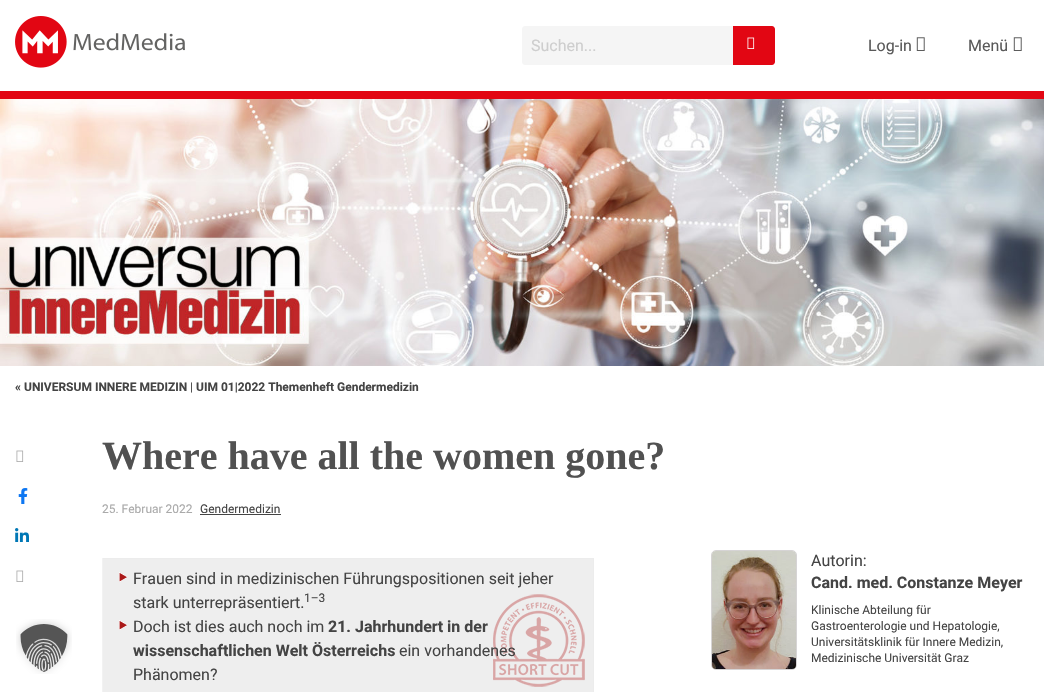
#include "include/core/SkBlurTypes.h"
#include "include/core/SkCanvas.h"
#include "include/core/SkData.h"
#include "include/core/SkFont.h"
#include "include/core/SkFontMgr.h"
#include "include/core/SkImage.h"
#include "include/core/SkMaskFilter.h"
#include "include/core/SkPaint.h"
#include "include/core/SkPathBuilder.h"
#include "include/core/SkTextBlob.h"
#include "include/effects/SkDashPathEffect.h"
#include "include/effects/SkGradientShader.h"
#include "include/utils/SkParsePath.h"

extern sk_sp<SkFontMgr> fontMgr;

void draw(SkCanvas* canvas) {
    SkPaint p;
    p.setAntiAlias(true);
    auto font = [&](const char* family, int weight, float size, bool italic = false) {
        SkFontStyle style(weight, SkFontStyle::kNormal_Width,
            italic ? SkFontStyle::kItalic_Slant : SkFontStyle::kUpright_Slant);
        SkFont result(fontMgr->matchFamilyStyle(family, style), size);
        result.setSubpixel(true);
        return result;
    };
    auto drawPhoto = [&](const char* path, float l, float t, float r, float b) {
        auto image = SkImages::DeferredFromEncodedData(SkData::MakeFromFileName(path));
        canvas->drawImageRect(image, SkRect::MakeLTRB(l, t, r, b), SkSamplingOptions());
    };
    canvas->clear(0xFFFFFFFF);
    p.setColor(0xFFE20613);
    canvas->drawRect(SkRect::MakeLTRB(0, 91, 1044, 99), p);
    drawPhoto("media/1.png", 15, 16, 185, 68);
    p.setColor(0xFFF5F5F5);
    canvas->drawPath(SkPathBuilder().moveTo(525, 26).lineTo(733, 26).lineTo(733, 65).lineTo(525, 65).cubicTo(523.5f, 65, 522, 63.5f, 522, 62).lineTo(522, 29).cubicTo(522, 27.5f, 523.5f, 26, 525, 26).close().detach(), p);
    auto font1 = font("Roboto", 400, 16);
    p.setColor(0xFFCECECE);
    canvas->drawString("Suchen...", 531, 51, font1, p);
    p.setColor(0xFFE20613);
    canvas->drawPath(SkPathBuilder().moveTo(733, 26).lineTo(772, 26).cubicTo(773.5f, 26, 775, 27.5f, 775, 29).lineTo(775, 62).cubicTo(775, 63.5f, 773.5f, 65, 772, 65).lineTo(733, 65).close().detach(), p);
    drawPhoto("media/2.png", 747, 37, 755, 49);
    p.setColor(0xFF595959);
    canvas->drawString("Log-in", 868, 51, font1, p);
    drawPhoto("media/3.png", 916, 37, 925, 51);
    canvas->drawString("Menü", 968, 51, font1, p);
    drawPhoto("media/3.png", 1013, 37, 1022, 51);
    drawPhoto("media/4.png", 0, 99, 1044, 366);
    auto font2 = font("Roboto", 700, 12);
    p.setColor(0xFF444444);
    canvas->drawString("« UNIVERSUM INNERE MEDIZIN", 15, 391, font2, p);
    auto font3 = font("Roboto", 400, 12);
    canvas->drawString("|", 190, 391, font3, p);
    canvas->drawString("UIM 01|2022 Themenheft Gendermedizin", 196, 391, font2, p);
    drawPhoto("media/5.png", 16, 450, 24, 462);
    drawPhoto("media/6.png", 18, 488, 28, 504);
    drawPhoto("media/7.png", 15, 528, 29, 542);
    drawPhoto("media/5.png", 16, 570, 24, 582);
    auto font4 = font("Liberation Serif", 700, 40);
    p.setColor(0xFF515151);
    canvas->drawString("Where have all the women gone?", 102, 469, font4, p);
    p.setColor(0xFFAAAAAA);
    canvas->drawString("25. Februar 2022", 102, 513, font3, p);
    p.setColor(0xFF444444);
    canvas->drawString("Gendermedizin", 200, 513, font3, p);
    canvas->drawRect(SkRect::MakeLTRB(200, 514, 281, 515), p);
    p.setColor(0xFFEEEEEE);
    canvas->drawRect(SkRect::MakeLTRB(103, 559, 593, 692), p);
    drawPhoto("media/8.png", 493, 594, 585, 687);
    {
        const struct { float l, t, r, b; SkColor color; } items[] = {
            {102, 558, 594, 559, 0xFFECECEC},
            {593, 558, 594, 692, 0xFFECECEC},
            {102, 558, 103, 692, 0xFFF2F2F2},
        };
        for (auto [l, t, r, b, color] : items) {
            p.setColor(color);
            canvas->drawRect(SkRect::MakeLTRB(l, t, r, b), p);
        }
    }
    drawPhoto("media/9.png", 119, 572, 127, 582);
    p.setColor(0xFF444444);
    canvas->drawString("Frauen sind in medizinischen Führungspositionen seit jeher", 133, 584, font1, p);
    canvas->drawString("stark unterrepräsentiert.", 133, 608, font1, p);
    canvas->drawString("1–3", 304, 602, font3, p);
    drawPhoto("media/9.png", 119, 620, 127, 630);
    canvas->drawString("Doch ist dies auch noch im", 133, 632, font1, p);
    auto font5 = font("Roboto", 700, 16);
    canvas->drawString("21. Jahrhundert in der", 328, 632, font5, p);
    canvas->drawString("wissenschaftlichen Welt Österreichs", 133, 656, font5, p);
    canvas->drawString("ein vorhandenes", 399, 656, font1, p);
    canvas->drawString("Phänomen?", 133, 680, font1, p);
    p.setStyle(SkPaint::kStroke_Style);
    p.setStrokeWidth(1);
    p.setColor(0xFFD6D4D5);
    canvas->drawRoundRect(SkRect::MakeLTRB(711.5f, 550.5f, 796.5f, 669.5f), 4.5f, 4.5f, p);
    drawPhoto("media/10.png", 712, 551, 796, 669);
    p.setStyle(SkPaint::kFill_Style);
    p.setColor(0xFF444444);
    canvas->drawString("Autorin:", 811, 566, font1, p);
    canvas->drawString("Cand. med. Constanze Meyer", 811, 588, font5, p);
    {
        const struct { const char* s; float x, y; } items[] = {
            {"Klinische Abteilung für", 811, 614},
            {"Gastroenterologie und Hepatologie,", 811, 630},
            {"Universitätsklinik für Innere Medizin,", 811, 646},
            {"Medizinische Universität Graz", 811, 662},
        };
        for (auto [s, x, y] : items) {
            canvas->drawString(s, x, y, font3, p);
        }
    }
    drawPhoto("media/11.png", 16, 619, 72, 674);
}
